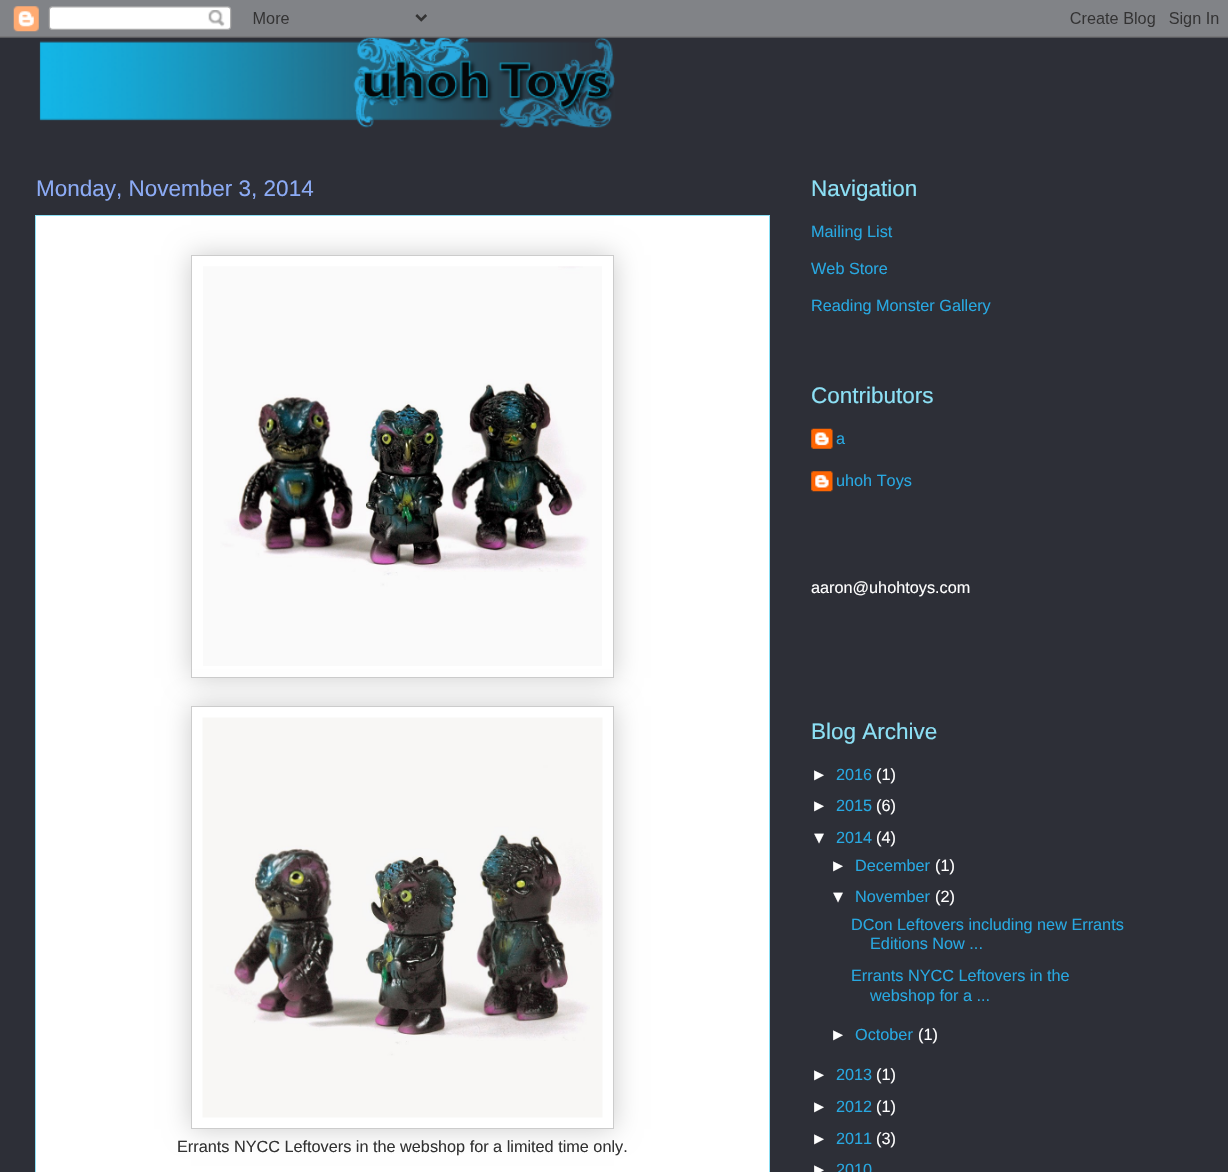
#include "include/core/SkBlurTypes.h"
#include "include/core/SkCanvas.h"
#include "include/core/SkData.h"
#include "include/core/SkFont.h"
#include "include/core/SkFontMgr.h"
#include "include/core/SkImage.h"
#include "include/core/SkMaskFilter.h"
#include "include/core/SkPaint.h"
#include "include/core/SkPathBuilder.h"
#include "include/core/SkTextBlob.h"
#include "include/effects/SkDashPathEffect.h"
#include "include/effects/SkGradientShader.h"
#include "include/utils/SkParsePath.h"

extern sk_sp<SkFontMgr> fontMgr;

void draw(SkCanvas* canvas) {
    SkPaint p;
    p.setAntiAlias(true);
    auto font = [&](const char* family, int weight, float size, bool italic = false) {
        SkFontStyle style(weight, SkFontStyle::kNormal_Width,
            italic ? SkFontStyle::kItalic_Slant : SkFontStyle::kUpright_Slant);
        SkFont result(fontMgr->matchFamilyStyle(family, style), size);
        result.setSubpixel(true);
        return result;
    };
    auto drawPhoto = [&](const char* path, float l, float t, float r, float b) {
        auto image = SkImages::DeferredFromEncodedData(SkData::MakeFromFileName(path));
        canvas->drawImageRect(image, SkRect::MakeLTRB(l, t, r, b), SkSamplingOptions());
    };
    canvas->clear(0xFF2D2F37);
    drawPhoto("media/2.png", 39, 37, 615, 128);
    drawPhoto("media/1.png", 0, 0, 1228, 38);
    p.setColor(0xFFFFFFFF);
    canvas->drawRect(SkRect::MakeLTRB(35.5f, 215.5f, 769.5f, 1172.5f), p);
    p.setStyle(SkPaint::kStroke_Style);
    p.setStrokeWidth(1);
    p.setColor(0xFF8CE0F5);
    canvas->drawRect(SkRect::MakeLTRB(35.5f, 215.5f, 769.5f, 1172.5f), p);
    auto font1 = font("Liberation Sans", 400, 22.5f);
    p.setStyle(SkPaint::kFill_Style);
    p.setColor(0xFF8CABF5);
    canvas->drawString("Monday, November 3, 2014", 36, 196, font1, p);
    p.setColor(0x33000000);
    p.setMaskFilter(SkMaskFilter::MakeBlur(kNormal_SkBlurStyle, 12.5f));
    canvas->drawRect(SkRect::MakeLTRB(191, 255, 614, 678), p);
    p.setMaskFilter(nullptr);
    p.setColor(0xFFFFFFFF);
    canvas->drawRect(SkRect::MakeLTRB(191.5f, 255.5f, 613.5f, 677.5f), p);
    p.setStyle(SkPaint::kStroke_Style);
    p.setColor(0xFFCCCCCC);
    canvas->drawRect(SkRect::MakeLTRB(191.5f, 255.5f, 613.5f, 677.5f), p);
    drawPhoto("media/3.png", 203, 266, 602, 666);
    p.setStyle(SkPaint::kFill_Style);
    p.setColor(0x33000000);
    p.setMaskFilter(SkMaskFilter::MakeBlur(kNormal_SkBlurStyle, 12.5f));
    canvas->drawRect(SkRect::MakeLTRB(191, 706, 614, 1129), p);
    p.setMaskFilter(nullptr);
    p.setColor(0xFFFFFFFF);
    canvas->drawRect(SkRect::MakeLTRB(191.5f, 706.5f, 613.5f, 1128.5f), p);
    p.setStyle(SkPaint::kStroke_Style);
    p.setColor(0xFFCCCCCC);
    canvas->drawRect(SkRect::MakeLTRB(191.5f, 706.5f, 613.5f, 1128.5f), p);
    drawPhoto("media/4.png", 202, 717, 603, 1118);
    auto font2 = font("Liberation Sans", 400, 16.25f);
    p.setStyle(SkPaint::kFill_Style);
    p.setColor(0xFF333333);
    canvas->drawString("Errants NYCC Leftovers in the webshop for a limited time only.", 177, 1152, font2, p);
    p.setColor(0xFF8CE0F5);
    canvas->drawString("Navigation", 811, 196, font1, p);
    p.setColor(0xFF28A8E1);
    {
        const struct { const char* s; float x, y; } items[] = {
            {"Mailing List", 811, 237},
            {"Web Store", 811, 274},
            {"Reading Monster Gallery", 811, 311},
        };
        for (auto [s, x, y] : items) {
            canvas->drawString(s, x, y, font2, p);
        }
    }
    p.setColor(0xFF8CE0F5);
    canvas->drawString("Contributors", 811, 403, font1, p);
    drawPhoto("media/5.png", 811, 428, 833, 449);
    p.setColor(0xFF28A8E1);
    canvas->drawString("a", 836, 444, font2, p);
    drawPhoto("media/6.png", 811, 471, 833, 492);
    canvas->drawString("uhoh Toys", 836, 486, font2, p);
    p.setColor(0xFFFFFFFF);
    canvas->drawString("aaron@uhohtoys.com", 811, 593, font2, p);
    p.setColor(0xFF8CE0F5);
    canvas->drawString("Blog Archive", 811, 739, font1, p);
    p.setColor(0xFFFFFFFF);
    canvas->drawString("►", 811, 780, font2, p);
    p.setColor(0xFF28A8E1);
    canvas->drawString("2016", 836, 780, font2, p);
    p.setColor(0xFFFFFFFF);
    canvas->drawString("(1)", 876, 780, font2, p);
    canvas->drawString("►", 811, 811, font2, p);
    p.setColor(0xFF28A8E1);
    canvas->drawString("2015", 836, 811, font2, p);
    p.setColor(0xFFFFFFFF);
    canvas->drawString("(6)", 876, 811, font2, p);
    canvas->drawString("▼", 811, 843, font2, p);
    p.setColor(0xFF28A8E1);
    canvas->drawString("2014", 836, 843, font2, p);
    p.setColor(0xFFFFFFFF);
    canvas->drawString("(4)", 876, 843, font2, p);
    canvas->drawString("►", 830, 871, font2, p);
    p.setColor(0xFF28A8E1);
    canvas->drawString("December", 855, 871, font2, p);
    p.setColor(0xFFFFFFFF);
    canvas->drawString("(1)", 935, 871, font2, p);
    canvas->drawString("▼", 830, 902, font2, p);
    p.setColor(0xFF28A8E1);
    canvas->drawString("November", 855, 902, font2, p);
    p.setColor(0xFFFFFFFF);
    canvas->drawString("(2)", 935, 902, font2, p);
    p.setColor(0xFF28A8E1);
    {
        const struct { const char* s; float x, y; } items[] = {
            {"DCon Leftovers including new Errants", 851, 930},
            {"Editions Now ...", 870, 949},
            {"Errants NYCC Leftovers in the", 851, 981},
            {"webshop for a ...", 870, 1001},
        };
        for (auto [s, x, y] : items) {
            canvas->drawString(s, x, y, font2, p);
        }
    }
    p.setColor(0xFFFFFFFF);
    canvas->drawString("►", 830, 1040, font2, p);
    p.setColor(0xFF28A8E1);
    canvas->drawString("October", 855, 1040, font2, p);
    p.setColor(0xFFFFFFFF);
    canvas->drawString("(1)", 918, 1040, font2, p);
    canvas->drawString("►", 811, 1080, font2, p);
    p.setColor(0xFF28A8E1);
    canvas->drawString("2013", 836, 1080, font2, p);
    p.setColor(0xFFFFFFFF);
    canvas->drawString("(1)", 876, 1080, font2, p);
    canvas->drawString("►", 811, 1112, font2, p);
    p.setColor(0xFF28A8E1);
    canvas->drawString("2012", 836, 1112, font2, p);
    p.setColor(0xFFFFFFFF);
    canvas->drawString("(1)", 876, 1112, font2, p);
    canvas->drawString("►", 811, 1144, font2, p);
    p.setColor(0xFF28A8E1);
    canvas->drawString("2011", 836, 1144, font2, p);
    p.setColor(0xFFFFFFFF);
    canvas->drawString("(3)", 876, 1144, font2, p);
    canvas->drawString("►", 811, 1175, font2, p);
    p.setColor(0xFF28A8E1);
    canvas->drawString("2010", 836, 1175, font2, p);
}
